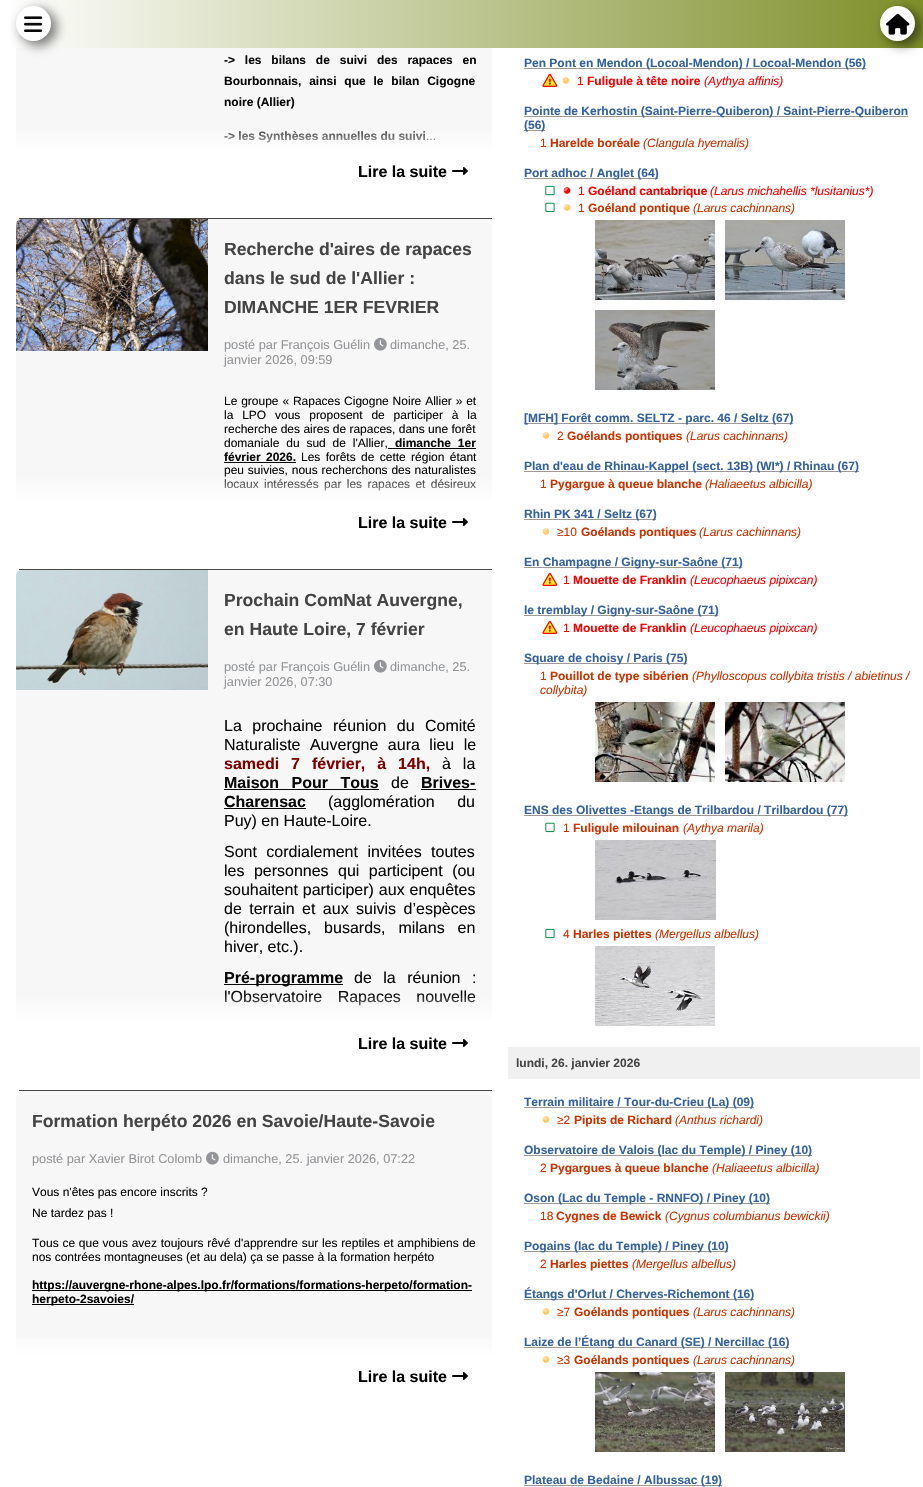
#include "include/core/SkBlurTypes.h"
#include "include/core/SkCanvas.h"
#include "include/core/SkData.h"
#include "include/core/SkFont.h"
#include "include/core/SkFontMgr.h"
#include "include/core/SkImage.h"
#include "include/core/SkMaskFilter.h"
#include "include/core/SkPaint.h"
#include "include/core/SkPathBuilder.h"
#include "include/core/SkTextBlob.h"
#include "include/effects/SkDashPathEffect.h"
#include "include/effects/SkGradientShader.h"
#include "include/utils/SkParsePath.h"

extern sk_sp<SkFontMgr> fontMgr;

void draw(SkCanvas* canvas) {
    SkPaint p;
    p.setAntiAlias(true);
    auto font = [&](const char* family, int weight, float size, bool italic = false) {
        SkFontStyle style(weight, SkFontStyle::kNormal_Width,
            italic ? SkFontStyle::kItalic_Slant : SkFontStyle::kUpright_Slant);
        SkFont result(fontMgr->matchFamilyStyle(family, style), size);
        result.setSubpixel(true);
        return result;
    };
    auto drawTracked = [&](const char* s, float x, float y, const SkFont& font, const SkPaint& ink, float letter, float word) {
        std::vector<SkGlyphID> glyphs(font.countText(s, strlen(s), SkTextEncoding::kUTF8));
        std::vector<float> xs(glyphs.size());
        font.textToGlyphs(s, strlen(s), SkTextEncoding::kUTF8, glyphs);
        font.getXPos(glyphs, xs, x);
        float extra = 0;
        for (size_t i = 0; i < glyphs.size(); i++) {
            xs[i] += extra;
            extra += letter + word * (glyphs[i] == font.unicharToGlyph(' '));
        }
        canvas->drawTextBlob(SkTextBlob::MakeFromPosHGlyphs(glyphs, xs, y, font), 0, 0, ink);
    };
    auto drawPhoto = [&](const char* path, float l, float t, float r, float b) {
        auto image = SkImages::DeferredFromEncodedData(SkData::MakeFromFileName(path));
        canvas->drawImageRect(image, SkRect::MakeLTRB(l, t, r, b), SkSamplingOptions());
    };
    canvas->clear(0xFFFFFFFF);
    {
        const SkColor colors[] = {0xFFFFFFFF, 0xFF7E8F29};
        const float stops[] = {0, 1};
        const SkPoint ends[] = {{0, 24}, {923, 24}};
        p.setShader(SkGradientShader::MakeLinear(ends, colors, stops, 2, SkTileMode::kClamp));
        p.setAlpha(255);
    }
    canvas->drawRect(SkRect::MakeLTRB(11, 0, 923, 48), p);
    p.setShader(nullptr);
    p.setColor(0xFFF7F7F7);
    canvas->drawRect(SkRect::MakeLTRB(16, 48, 492, 155), p);
    p.setColor(0x80000000);
    p.setMaskFilter(SkMaskFilter::MakeBlur(kNormal_SkBlurStyle, 5.5f));
    canvas->drawRoundRect(SkRect::MakeLTRB(20, 9, 57, 46), 18.5f, 18.5f, p);
    p.setMaskFilter(nullptr);
    p.setColor(0xFFFFFFFF);
    canvas->drawCircle(33.5f, 23.5f, 17.5f, p);
    drawPhoto("media/1.png", 24, 16, 43, 32);
    p.setColor(0x80000000);
    p.setMaskFilter(SkMaskFilter::MakeBlur(kNormal_SkBlurStyle, 5.5f));
    canvas->drawRoundRect(SkRect::MakeLTRB(884, 9, 921, 46), 18.5f, 18.5f, p);
    p.setMaskFilter(nullptr);
    p.setColor(0xFFFFFFFF);
    canvas->drawCircle(897.5f, 23.5f, 17.5f, p);
    drawPhoto("media/2.png", 886, 13, 910, 35);
    auto font1 = font("Liberation Sans", 700, 12);
    p.setColor(0xFF090909);
    drawTracked("-> les bilans de suivi des rapaces en", 224, 64, font1, p, 0, 6.5f);
    drawTracked("Bourbonnais, ainsi que le bilan Cigogne", 224, 85, font1, p, 0, 4.5f);
    canvas->drawString("noire (Allier)", 224, 106, font1, p);
    canvas->drawString("-> les Synthèses annuelles du suivi", 224, 140, font1, p);
    auto font2 = font("Liberation Sans", 400, 12);
    canvas->drawString("...", 426, 140, font2, p);
    {
        const SkColor colors[] = {0xFFFFFFFF, 0x00FFFFFF};
        const float stops[] = {0, 1};
        const SkPoint ends[] = {{254, 155}, {254, 123}};
        p.setShader(SkGradientShader::MakeLinear(ends, colors, stops, 2, SkTileMode::kClamp));
        p.setAlpha(255);
    }
    canvas->drawRect(SkRect::MakeLTRB(16, 131, 492, 155), p);
    auto font3 = font("Liberation Sans", 700, 16);
    p.setShader(nullptr);
    p.setColor(0xFF000000);
    canvas->drawString("Lire la suite", 358, 177, font3, p);
    drawPhoto("media/3.png", 452, 167, 468, 175);
    p.setColor(0xFFF7F7F7);
    canvas->drawPath(SkPathBuilder().moveTo(22, 218).lineTo(492, 218).lineTo(492, 506).lineTo(16, 506).lineTo(16, 224).cubicTo(16, 220.5f, 18.5f, 218, 22, 218).close().detach(), p);
    p.setColor(0xFF464646);
    canvas->drawRect(SkRect::MakeLTRB(19, 218, 492, 219), p);
    drawPhoto("media/4.png", 16, 219, 208, 351);
    auto font4 = font("Liberation Sans", 700, 17.6f);
    p.setColor(0xFF444444);
    {
        const struct { const char* s; float x, y; } items[] = {
            {"Recherche d'aires de rapaces", 224, 255},
            {"dans le sud de l'Allier :", 224, 284},
            {"DIMANCHE 1ER FEVRIER", 224, 313},
        };
        for (auto [s, x, y] : items) {
            canvas->drawString(s, x, y, font4, p);
        }
    }
    auto font5 = font("Liberation Sans", 400, 12.75f);
    p.setColor(0xFF939598);
    canvas->drawString("posté par François Guélin", 224, 349, font5, p);
    drawPhoto("media/5.png", 374, 337, 387, 351);
    canvas->drawString("dimanche, 25.", 390, 349, font5, p);
    canvas->drawString("janvier 2026, 09:59", 224, 364, font5, p);
    p.setColor(0xFF090909);
    drawTracked("Le groupe « Rapaces Cigogne Noire Allier » et", 224, 405, font2, p, 0, 0.5f);
    drawTracked("la LPO vous proposent de participer à la", 224, 419, font2, p, 0, 5.5f);
    canvas->drawString("recherche des aires de rapaces, dans une forêt", 224, 433, font2, p);
    drawTracked("domaniale du sud de l'Allier,", 224, 447, font2, p, 0, 3.5f);
    drawTracked("dimanche 1er", 395, 447, font1, p, 0, 3.5f);
    canvas->drawRect(SkRect::MakeLTRB(388, 448, 476, 449), p);
    drawTracked("février 2026.", 224, 461, font1, p, 0, 2);
    canvas->drawRect(SkRect::MakeLTRB(224, 462, 296, 463), p);
    drawTracked("Les forêts de cette région étant", 301, 461, font2, p, 0, 2);
    drawTracked("peu suivies, nous recherchons des naturalistes", 224, 474, font2, p, 0, 0.5f);
    drawTracked("locaux intéressés par les rapaces et désireux", 224, 488, font2, p, 0, 2);
    {
        const SkColor colors[] = {0xFFFFFFFF, 0x00FFFFFF};
        const float stops[] = {0, 1};
        const SkPoint ends[] = {{254, 506}, {254, 474}};
        p.setShader(SkGradientShader::MakeLinear(ends, colors, stops, 2, SkTileMode::kClamp));
        p.setAlpha(255);
    }
    canvas->drawRect(SkRect::MakeLTRB(16, 475, 492, 506), p);
    p.setShader(nullptr);
    p.setColor(0xFF000000);
    canvas->drawString("Lire la suite", 358, 528, font3, p);
    drawPhoto("media/3.png", 452, 518, 468, 526);
    p.setColor(0xFFF7F7F7);
    canvas->drawPath(SkPathBuilder().moveTo(22, 569).lineTo(492, 569).lineTo(492, 1026).lineTo(16, 1026).lineTo(16, 575).cubicTo(16, 571.5f, 18.5f, 569, 22, 569).close().detach(), p);
    p.setColor(0xFF464646);
    canvas->drawRect(SkRect::MakeLTRB(19, 569, 492, 570), p);
    drawPhoto("media/6.png", 16, 570, 208, 690);
    p.setColor(0xFF444444);
    canvas->drawString("Prochain ComNat Auvergne,", 224, 606, font4, p);
    canvas->drawString("en Haute Loire, 7 février", 224, 635, font4, p);
    p.setColor(0xFF939598);
    canvas->drawString("posté par François Guélin", 224, 671, font5, p);
    drawPhoto("media/5.png", 374, 659, 387, 673);
    canvas->drawString("dimanche, 25.", 390, 671, font5, p);
    canvas->drawString("janvier 2026, 07:30", 224, 686, font5, p);
    auto font6 = font("Liberation Sans", 400, 16);
    p.setColor(0xFF090909);
    drawTracked("La prochaine réunion du Comité", 224, 731, font6, p, 0, 6);
    drawTracked("Naturaliste Auvergne aura lieu le", 224, 750, font6, p, 0, 5);
    p.setColor(0xFF800000);
    drawTracked("samedi 7 février, à 14h,", 224, 769, font3, p, 0, 7.5f);
    p.setColor(0xFF090909);
    drawTracked("à la", 442, 769, font6, p, 0, 7.5f);
    drawTracked("Maison Pour Tous", 224, 788, font3, p, 0, 8);
    canvas->drawRect(SkRect::MakeLTRB(224, 789, 379, 790), p);
    canvas->drawString("de", 391, 788, font6, p);
    canvas->drawString("Brives-", 421, 788, font3, p);
    canvas->drawRect(SkRect::MakeLTRB(421, 789, 476, 790), p);
    canvas->drawString("Charensac", 224, 807, font3, p);
    canvas->drawRect(SkRect::MakeLTRB(224, 808, 306, 809), p);
    drawTracked("(agglomération du", 328, 807, font6, p, 0, 18);
    canvas->drawString("Puy) en Haute-Loire.", 224, 826, font6, p);
    drawTracked("Sont cordialement invitées toutes", 224, 857, font6, p, 0, 5);
    drawTracked("les personnes qui participent (ou", 224, 876, font6, p, 0, 5);
    drawTracked("souhaitent participer) aux enquêtes", 224, 895, font6, p, 0, 0.5f);
    drawTracked("de terrain et aux suivis d’espèces", 224, 914, font6, p, 0, 3);
    drawTracked("(hirondelles, busards, milans en", 224, 933, font6, p, 0, 8.5f);
    canvas->drawString("hiver, etc.).", 224, 952, font6, p);
    canvas->drawRect(SkRect::MakeLTRB(224, 984, 343, 985), p);
    canvas->drawString("Pré-programme", 224, 983, font3, p);
    drawTracked("de la réunion :", 354, 983, font6, p, 0, 7);
    drawTracked("l'Observatoire Rapaces nouvelle", 224, 1002, font6, p, 0, 11);
    {
        const SkColor colors[] = {0xFFFFFFFF, 0x00FFFFFF};
        const float stops[] = {0, 1};
        const SkPoint ends[] = {{254, 1026}, {254, 994}};
        p.setShader(SkGradientShader::MakeLinear(ends, colors, stops, 2, SkTileMode::kClamp));
        p.setAlpha(255);
    }
    canvas->drawRect(SkRect::MakeLTRB(16, 995, 492, 1026), p);
    p.setShader(nullptr);
    p.setColor(0xFF000000);
    canvas->drawString("Lire la suite", 358, 1049, font3, p);
    drawPhoto("media/3.png", 452, 1039, 468, 1047);
    p.setColor(0xFFF7F7F7);
    canvas->drawPath(SkPathBuilder().moveTo(22, 1090).lineTo(492, 1090).lineTo(492, 1360).lineTo(16, 1360).lineTo(16, 1096).cubicTo(16, 1092.5f, 18.5f, 1090, 22, 1090).close().detach(), p);
    p.setColor(0xFF464646);
    canvas->drawRect(SkRect::MakeLTRB(19, 1090, 492, 1091), p);
    p.setColor(0xFF444444);
    canvas->drawString("Formation herpéto 2026 en Savoie/Haute-Savoie", 32, 1127, font4, p);
    p.setColor(0xFF939598);
    canvas->drawString("posté par Xavier Birot Colomb", 32, 1163, font5, p);
    drawPhoto("media/5.png", 206, 1151, 219, 1165);
    canvas->drawString("dimanche, 25. janvier 2026, 07:22", 223, 1163, font5, p);
    p.setColor(0xFF090909);
    canvas->drawString("Vous n'êtes pas encore inscrits ?", 32, 1196, font2, p);
    canvas->drawString("Ne tardez pas !", 32, 1217, font2, p);
    drawTracked("Tous ce que vous avez toujours rêvé d'apprendre sur les reptiles et amphibiens de", 32, 1247, font2, p, 0, 0.4f);
    canvas->drawString("nos contrées montagneuses (et au dela) ça se passe à la formation herpéto", 32, 1261, font2, p);
    p.setColor(0xFF000000);
    canvas->drawRect(SkRect::MakeLTRB(32, 1290, 472, 1291), p);
    canvas->drawString("https://auvergne-rhone-alpes.lpo.fr/formations/formations-herpeto/formation-", 32, 1289, font1, p);
    canvas->drawRect(SkRect::MakeLTRB(32, 1304, 134, 1305), p);
    canvas->drawString("herpeto-2savoies/", 32, 1303, font1, p);
    {
        const SkColor colors[] = {0xFFFFFFFF, 0x00FFFFFF};
        const float stops[] = {0, 1};
        const SkPoint ends[] = {{254, 1360}, {254, 1328}};
        p.setShader(SkGradientShader::MakeLinear(ends, colors, stops, 2, SkTileMode::kClamp));
        p.setAlpha(255);
    }
    canvas->drawRect(SkRect::MakeLTRB(16, 1338, 492, 1360), p);
    p.setShader(nullptr);
    p.setColor(0xFF000000);
    canvas->drawString("Lire la suite", 358, 1382, font3, p);
    drawPhoto("media/3.png", 452, 1372, 468, 1380);
    p.setColor(0xFF9A9A9A);
    canvas->drawRect(SkRect::MakeLTRB(524, 68, 866, 69), p);
    p.setColor(0xFF34619F);
    canvas->drawString("Pen Pont en Mendon (Locoal-Mendon) / Locoal-Mendon (56)", 524, 67, font1, p);
    drawPhoto("media/8.png", 543, 74, 557, 87);
    drawPhoto("media/7.png", 542, 73, 558, 87);
    drawPhoto("media/9.png", 562, 77, 570, 84);
    drawPhoto("media/10.png", 563, 77, 568, 82);
    p.setColor(0xFFFF0000);
    canvas->drawString("1", 577, 85, font2, p);
    canvas->drawString("Fuligule à tête noire", 587, 85, font1, p);
    auto font7 = font("Liberation Sans", 400, 12, true);
    canvas->drawString("(Aythya affinis)", 704, 85, font7, p);
    p.setColor(0xFF9A9A9A);
    canvas->drawRect(SkRect::MakeLTRB(524, 116, 908, 117), p);
    p.setColor(0xFF34619F);
    canvas->drawString("Pointe de Kerhostin (Saint-Pierre-Quiberon) / Saint-Pierre-Quiberon", 524, 115, font1, p);
    p.setColor(0xFF9A9A9A);
    canvas->drawRect(SkRect::MakeLTRB(524, 130, 545, 131), p);
    p.setColor(0xFF34619F);
    canvas->drawString("(56)", 524, 129, font1, p);
    p.setColor(0xFFCC3300);
    canvas->drawString("1", 540, 147, font2, p);
    canvas->drawString("Harelde boréale", 550, 147, font1, p);
    canvas->drawString("(Clangula hyemalis)", 643, 147, font7, p);
    p.setColor(0xFF9A9A9A);
    canvas->drawRect(SkRect::MakeLTRB(524, 178, 658, 179), p);
    p.setColor(0xFF34619F);
    canvas->drawString("Port adhoc / Anglet (64)", 524, 177, font1, p);
    drawPhoto("media/11.png", 545, 185, 555, 196);
    drawPhoto("media/12.png", 563, 187, 571, 194);
    drawPhoto("media/13.png", 564, 187, 568, 192);
    p.setColor(0xFFFF0000);
    canvas->drawString("1", 578, 195, font2, p);
    canvas->drawString("Goéland cantabrique", 588, 195, font1, p);
    canvas->drawString("(Larus michahellis *lusitanius*)", 710, 195, font7, p);
    drawPhoto("media/14.png", 545, 202, 555, 213);
    drawPhoto("media/9.png", 563, 204, 571, 211);
    drawPhoto("media/15.png", 564, 204, 568, 208);
    p.setColor(0xFFCC3300);
    canvas->drawString("1", 578, 212, font2, p);
    canvas->drawString("Goéland pontique", 588, 212, font1, p);
    canvas->drawString("(Larus cachinnans)", 693, 212, font7, p);
    drawPhoto("media/16.png", 595, 220, 715, 300);
    drawPhoto("media/17.png", 725, 220, 845, 300);
    drawPhoto("media/18.png", 595, 310, 715, 390);
    p.setColor(0xFF9A9A9A);
    canvas->drawRect(SkRect::MakeLTRB(524, 423, 793, 424), p);
    p.setColor(0xFF34619F);
    canvas->drawString("[MFH] Forêt comm. SELTZ - parc. 46 / Seltz (67)", 524, 422, font1, p);
    drawPhoto("media/9.png", 542, 432, 550, 439);
    drawPhoto("media/19.png", 543, 432, 547, 436);
    p.setColor(0xFFCC3300);
    canvas->drawString("2", 557, 440, font2, p);
    canvas->drawString("Goélands pontiques", 567, 440, font1, p);
    canvas->drawString("(Larus cachinnans)", 686, 440, font7, p);
    p.setColor(0xFF9A9A9A);
    canvas->drawRect(SkRect::MakeLTRB(524, 471, 859, 472), p);
    p.setColor(0xFF34619F);
    canvas->drawString("Plan d'eau de Rhinau-Kappel (sect. 13B) (WI*) / Rhinau (67)", 524, 470, font1, p);
    p.setColor(0xFFCC3300);
    canvas->drawString("1", 540, 488, font2, p);
    canvas->drawString("Pygargue à queue blanche", 550, 488, font1, p);
    canvas->drawString("(Haliaeetus albicilla)", 705, 488, font7, p);
    p.setColor(0xFF9A9A9A);
    canvas->drawRect(SkRect::MakeLTRB(524, 519, 656, 520), p);
    p.setColor(0xFF34619F);
    canvas->drawString("Rhin PK 341 / Seltz (67)", 524, 518, font1, p);
    drawPhoto("media/9.png", 542, 528, 550, 535);
    drawPhoto("media/19.png", 543, 528, 547, 532);
    p.setColor(0xFFCC3300);
    canvas->drawString("≥10", 557, 536, font2, p);
    canvas->drawString("Goélands pontiques", 581, 536, font1, p);
    canvas->drawString("(Larus cachinnans)", 699, 536, font7, p);
    p.setColor(0xFF9A9A9A);
    canvas->drawRect(SkRect::MakeLTRB(524, 567, 742, 568), p);
    p.setColor(0xFF34619F);
    canvas->drawString("En Champagne / Gigny-sur-Saône (71)", 524, 566, font1, p);
    drawPhoto("media/8.png", 543, 573, 557, 586);
    drawPhoto("media/20.png", 542, 572, 558, 586);
    p.setColor(0xFFFF0000);
    canvas->drawString("1", 563, 584, font2, p);
    canvas->drawString("Mouette de Franklin", 573, 584, font1, p);
    canvas->drawString("(Leucophaeus pipixcan)", 690, 584, font7, p);
    p.setColor(0xFF9A9A9A);
    canvas->drawRect(SkRect::MakeLTRB(524, 615, 718, 616), p);
    p.setColor(0xFF34619F);
    canvas->drawString("le tremblay / Gigny-sur-Saône (71)", 524, 614, font1, p);
    drawPhoto("media/8.png", 543, 621, 557, 634);
    drawPhoto("media/20.png", 542, 620, 558, 634);
    p.setColor(0xFFFF0000);
    canvas->drawString("1", 563, 632, font2, p);
    canvas->drawString("Mouette de Franklin", 573, 632, font1, p);
    canvas->drawString("(Leucophaeus pipixcan)", 690, 632, font7, p);
    p.setColor(0xFF9A9A9A);
    canvas->drawRect(SkRect::MakeLTRB(524, 663, 687, 664), p);
    p.setColor(0xFF34619F);
    canvas->drawString("Square de choisy / Paris (75)", 524, 662, font1, p);
    p.setColor(0xFFCC3300);
    canvas->drawString("1", 540, 680, font2, p);
    canvas->drawString("Pouillot de type sibérien", 550, 680, font1, p);
    canvas->drawString("(Phylloscopus collybita tristis / abietinus /", 692, 680, font7, p);
    canvas->drawString("collybita)", 540, 694, font7, p);
    drawPhoto("media/21.png", 595, 702, 715, 782);
    drawPhoto("media/22.png", 725, 702, 845, 782);
    p.setColor(0xFF9A9A9A);
    canvas->drawRect(SkRect::MakeLTRB(524, 815, 848, 816), p);
    p.setColor(0xFF34619F);
    canvas->drawString("ENS des Olivettes -Etangs de Trilbardou / Trilbardou (77)", 524, 814, font1, p);
    drawPhoto("media/14.png", 545, 822, 555, 833);
    p.setColor(0xFFCC3300);
    canvas->drawString("1", 563, 832, font2, p);
    canvas->drawString("Fuligule milouinan", 573, 832, font1, p);
    canvas->drawString("(Aythya marila)", 683, 832, font7, p);
    drawPhoto("media/23.png", 595, 840, 716, 920);
    drawPhoto("media/24.png", 545, 928, 555, 939);
    canvas->drawString("4", 563, 938, font2, p);
    canvas->drawString("Harles piettes", 573, 938, font1, p);
    canvas->drawString("(Mergellus albellus)", 655, 938, font7, p);
    drawPhoto("media/25.png", 595, 946, 715, 1026);
    p.setColor(0xFFF0F0F0);
    canvas->drawRect(SkRect::MakeLTRB(508, 1047, 920, 1079), p);
    p.setColor(0xFF444444);
    canvas->drawString("lundi, 26. janvier 2026", 516, 1067, font1, p);
    p.setColor(0xFF9A9A9A);
    canvas->drawRect(SkRect::MakeLTRB(524, 1107, 754, 1108), p);
    p.setColor(0xFF34619F);
    canvas->drawString("Terrain militaire / Tour-du-Crieu (La) (09)", 524, 1106, font1, p);
    drawPhoto("media/9.png", 542, 1116, 550, 1123);
    drawPhoto("media/26.png", 543, 1116, 548, 1121);
    p.setColor(0xFFCC3300);
    canvas->drawString("≥2", 557, 1124, font2, p);
    canvas->drawString("Pipits de Richard", 574, 1124, font1, p);
    canvas->drawString("(Anthus richardi)", 675, 1124, font7, p);
    p.setColor(0xFF9A9A9A);
    canvas->drawRect(SkRect::MakeLTRB(524, 1155, 812, 1156), p);
    p.setColor(0xFF34619F);
    canvas->drawString("Observatoire de Valois (lac du Temple) / Piney (10)", 524, 1154, font1, p);
    p.setColor(0xFFCC3300);
    canvas->drawString("2", 540, 1172, font2, p);
    canvas->drawString("Pygargues à queue blanche", 550, 1172, font1, p);
    canvas->drawString("(Haliaeetus albicilla)", 712, 1172, font7, p);
    p.setColor(0xFF9A9A9A);
    canvas->drawRect(SkRect::MakeLTRB(524, 1203, 770, 1204), p);
    p.setColor(0xFF34619F);
    canvas->drawString("Oson (Lac du Temple - RNNFO) / Piney (10)", 524, 1202, font1, p);
    p.setColor(0xFFCC3300);
    canvas->drawString("18", 540, 1220, font2, p);
    canvas->drawString("Cygnes de Bewick", 556, 1220, font1, p);
    canvas->drawString("(Cygnus columbianus bewickii)", 665, 1220, font7, p);
    p.setColor(0xFF9A9A9A);
    canvas->drawRect(SkRect::MakeLTRB(524, 1251, 728, 1252), p);
    p.setColor(0xFF34619F);
    canvas->drawString("Pogains (lac du Temple) / Piney (10)", 524, 1250, font1, p);
    p.setColor(0xFFCC3300);
    canvas->drawString("2", 540, 1268, font2, p);
    canvas->drawString("Harles piettes", 550, 1268, font1, p);
    canvas->drawString("(Mergellus albellus)", 632, 1268, font7, p);
    p.setColor(0xFF9A9A9A);
    canvas->drawRect(SkRect::MakeLTRB(524, 1299, 754, 1300), p);
    p.setColor(0xFF34619F);
    canvas->drawString("Étangs d'Orlut / Cherves-Richemont (16)", 524, 1298, font1, p);
    drawPhoto("media/9.png", 542, 1308, 550, 1315);
    drawPhoto("media/26.png", 543, 1308, 548, 1313);
    p.setColor(0xFFCC3300);
    canvas->drawString("≥7", 557, 1316, font2, p);
    canvas->drawString("Goélands pontiques", 574, 1316, font1, p);
    canvas->drawString("(Larus cachinnans)", 693, 1316, font7, p);
    p.setColor(0xFF9A9A9A);
    canvas->drawRect(SkRect::MakeLTRB(524, 1347, 789, 1348), p);
    p.setColor(0xFF34619F);
    canvas->drawString("Laize de l’Étang du Canard (SE) / Nercillac (16)", 524, 1346, font1, p);
    drawPhoto("media/9.png", 542, 1356, 550, 1363);
    drawPhoto("media/26.png", 543, 1356, 548, 1361);
    p.setColor(0xFFCC3300);
    canvas->drawString("≥3", 557, 1364, font2, p);
    canvas->drawString("Goélands pontiques", 574, 1364, font1, p);
    canvas->drawString("(Larus cachinnans)", 693, 1364, font7, p);
    drawPhoto("media/27.png", 595, 1372, 715, 1452);
    drawPhoto("media/28.png", 725, 1372, 845, 1452);
    p.setColor(0xFF9A9A9A);
    canvas->drawRect(SkRect::MakeLTRB(524, 1485, 722, 1486), p);
    p.setColor(0xFF34619F);
    canvas->drawString("Plateau de Bedaine / Albussac (19)", 524, 1484, font1, p);
}
